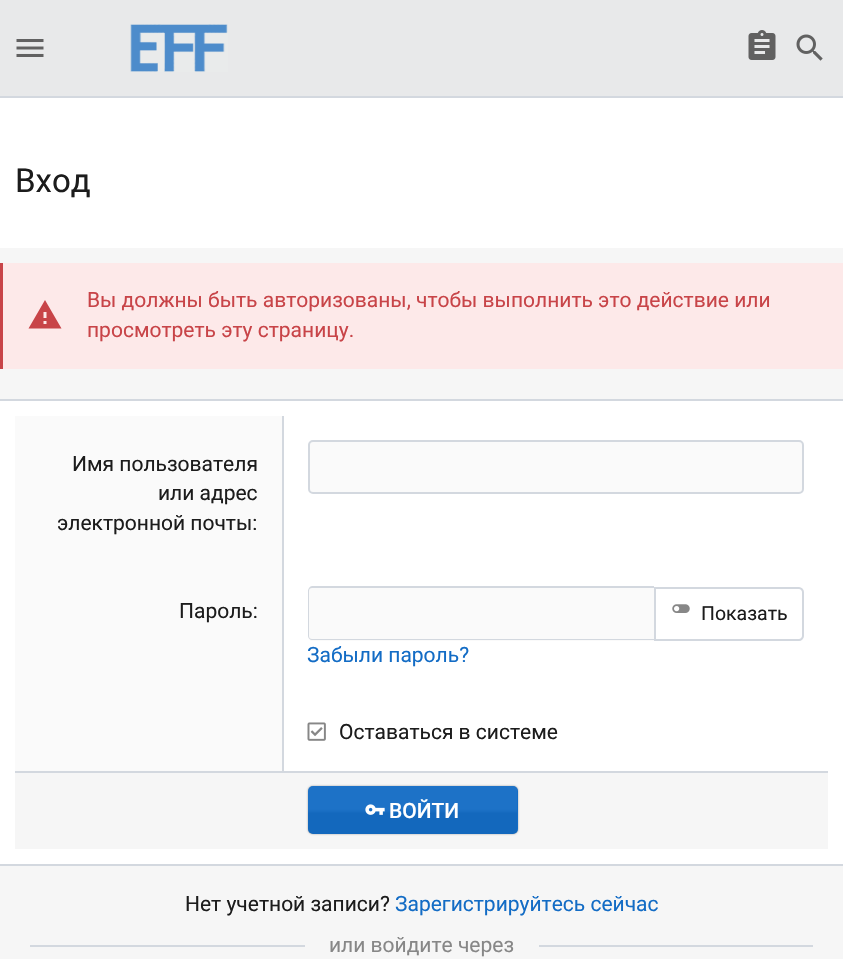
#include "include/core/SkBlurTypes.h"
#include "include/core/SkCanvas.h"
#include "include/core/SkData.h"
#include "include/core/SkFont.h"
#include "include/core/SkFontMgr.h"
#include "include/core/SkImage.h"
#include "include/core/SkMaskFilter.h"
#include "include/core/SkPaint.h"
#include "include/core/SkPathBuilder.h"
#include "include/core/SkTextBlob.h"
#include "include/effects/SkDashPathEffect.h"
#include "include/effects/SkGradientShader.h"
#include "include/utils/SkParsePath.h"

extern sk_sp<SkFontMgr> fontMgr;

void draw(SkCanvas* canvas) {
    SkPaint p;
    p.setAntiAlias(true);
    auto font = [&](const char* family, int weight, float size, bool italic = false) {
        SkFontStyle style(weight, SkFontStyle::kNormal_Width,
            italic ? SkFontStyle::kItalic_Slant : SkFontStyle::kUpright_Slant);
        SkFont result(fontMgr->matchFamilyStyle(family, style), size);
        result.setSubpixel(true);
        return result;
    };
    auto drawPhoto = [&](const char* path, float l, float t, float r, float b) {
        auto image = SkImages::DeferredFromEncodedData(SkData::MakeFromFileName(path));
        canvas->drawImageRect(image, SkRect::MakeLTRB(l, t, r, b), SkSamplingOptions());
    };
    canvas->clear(0xFFFFFFFF);
    p.setColor(0xFFE8E9EA);
    canvas->drawRect(SkRect::MakeLTRB(0, 0, 843, 96), p);
    p.setColor(0xFFD3D8DF);
    canvas->drawRect(SkRect::MakeLTRB(0, 96, 843, 98), p);
    drawPhoto("media/1.png", 16, 39, 44, 57);
    drawPhoto("media/2.png", 130, 24, 228, 72);
    drawPhoto("media/3.png", 748, 30, 776, 60);
    drawPhoto("media/4.png", 796, 34, 823, 61);
    auto font1 = font("Roboto", 400, 33);
    p.setColor(0xFF1C1C1C);
    canvas->drawString("Вход", 15, 192, font1, p);
    {
        const struct { float l, t, r, b; SkColor color; } items[] = {
            {0, 248, 843, 959, 0xFFF6F6F6},
            {3, 263, 843, 369, 0xFFFDE9E9},
            {0, 263, 3, 369, 0xFFC84448},
        };
        for (auto [l, t, r, b, color] : items) {
            p.setColor(color);
            canvas->drawRect(SkRect::MakeLTRB(l, t, r, b), p);
        }
    }
    canvas->drawPath(SkPathBuilder().moveTo(46.5f, 318).lineTo(43.5f, 318).lineTo(43.5f, 312).lineTo(46.5f, 312).close().moveTo(46.5f, 324).lineTo(43.5f, 324).lineTo(43.5f, 321).lineTo(46.5f, 321).close().moveTo(28.5f, 328.5f).lineTo(61.5f, 328.5f).lineTo(45, 300).close().detach(), p);
    auto font2 = font("Roboto", 400, 21);
    canvas->drawString("Вы должны быть авторизованы, чтобы выполнить это действие или", 87, 307, font2, p);
    canvas->drawString("просмотреть эту страницу.", 87, 337, font2, p);
    {
        const struct { float l, t, r, b; SkColor color; } items[] = {
            {0, 401, 843, 864, 0xFFFFFFFF},
            {0, 399, 843, 401, 0xFFD3D8DF},
            {0, 864, 843, 866, 0xFFD3D8DF},
            {15, 416, 282, 771, 0xFFFAFAFA},
            {282, 416, 284, 771, 0xFFD3D8DF},
        };
        for (auto [l, t, r, b, color] : items) {
            p.setColor(color);
            canvas->drawRect(SkRect::MakeLTRB(l, t, r, b), p);
        }
    }
    p.setColor(0xFF1C1C1C);
    {
        const struct { const char* s; float x, y; } items[] = {
            {"Имя пользователя", 72, 471},
            {"или адрес", 158, 500},
            {"электронной почты:", 57, 530},
        };
        for (auto [s, x, y] : items) {
            canvas->drawString(s, x, y, font2, p);
        }
    }
    p.setColor(0xFFFAFAFA);
    canvas->drawRoundRect(SkRect::MakeLTRB(309, 441, 803, 493), 4, 4, p);
    p.setStyle(SkPaint::kStroke_Style);
    p.setStrokeWidth(2);
    p.setColor(0xFFD3D8DF);
    canvas->drawRoundRect(SkRect::MakeLTRB(309, 441, 803, 493), 4, 4, p);
    p.setStyle(SkPaint::kFill_Style);
    p.setColor(0xFF1C1C1C);
    canvas->drawString("Пароль:", 179, 618, font2, p);
    p.setColor(0xFFFAFAFA);
    canvas->drawPath(SkPathBuilder().moveTo(313, 587).lineTo(654, 587).lineTo(654, 641).lineTo(313, 641).cubicTo(310, 641, 308, 639, 308, 636).lineTo(308, 592).cubicTo(308, 589, 310, 587, 313, 587).close().detach(), p);
    p.setColor(0xFFD3D8DF);
    canvas->drawPath(SkPathBuilder(SkPathFillType::kEvenOdd).moveTo(312, 586).lineTo(654, 586).lineTo(654, 640).lineTo(312, 640).cubicTo(310, 640, 308, 638, 308, 636).lineTo(308, 591).cubicTo(308, 589, 310, 586, 312, 586).close().moveTo(312, 588).lineTo(654, 588).lineTo(654, 639).lineTo(312, 639).cubicTo(310, 639, 309, 638, 309, 636).lineTo(309, 591).cubicTo(309, 589, 310, 588, 312, 588).close().detach(), p);
    p.setStyle(SkPaint::kStroke_Style);
    canvas->drawPath(SkPathBuilder().moveTo(655, 588).lineTo(799, 588).cubicTo(801, 588, 803, 590, 803, 592).lineTo(803, 636).cubicTo(803, 638, 801, 640, 799, 640).lineTo(655, 640).close().detach(), p);
    drawPhoto("media/5.png", 672, 604, 690, 613);
    auto font3 = font("Roboto", 400, 19.5f);
    p.setStyle(SkPaint::kFill_Style);
    p.setColor(0xFF1C1C1C);
    canvas->drawString("Показать", 701, 620, font3, p);
    p.setColor(0xFF136CC5);
    canvas->drawString("Забыли пароль?", 307, 662, font2, p);
    drawPhoto("media/6.png", 307, 722, 326, 741);
    p.setColor(0xFF1C1C1C);
    canvas->drawString("Оставаться в системе", 339, 739, font2, p);
    p.setColor(0xFFF6F6F6);
    canvas->drawRect(SkRect::MakeLTRB(15, 773, 828, 849), p);
    p.setColor(0xFFD3D8DF);
    canvas->drawRect(SkRect::MakeLTRB(15, 771, 828, 773), p);
    p.setColor(0x66000000);
    p.setMaskFilter(SkMaskFilter::MakeBlur(kNormal_SkBlurStyle, 1));
    canvas->drawRoundRect(SkRect::MakeLTRB(308, 786, 518, 834), 5, 5, p);
    p.setMaskFilter(nullptr);
    p.setColor(0xFF136CC5);
    canvas->drawRoundRect(SkRect::MakeLTRB(308, 786, 518, 834), 5, 5, p);
    drawPhoto("media/7.png", 308, 786, 517, 834);
    drawPhoto("media/8.png", 365, 804, 385, 815);
    auto font4 = font("Roboto", 500, 21);
    p.setColor(0xFFFFFFFF);
    canvas->drawString("ВОЙТИ", 389, 818, font4, p);
    p.setColor(0xFF1C1C1C);
    canvas->drawString("Нет учетной записи?", 185, 911, font2, p);
    p.setColor(0xFF136CC5);
    canvas->drawString("Зарегистрируйтесь сейчас", 395, 911, font2, p);
    p.setColor(0xFFD3D8DF);
    canvas->drawRect(SkRect::MakeLTRB(30, 945, 305, 947), p);
    p.setColor(0xFF878787);
    canvas->drawString("или войдите через", 329, 952, font2, p);
    p.setColor(0xFFD3D8DF);
    canvas->drawRect(SkRect::MakeLTRB(539, 945, 813, 947), p);
}
